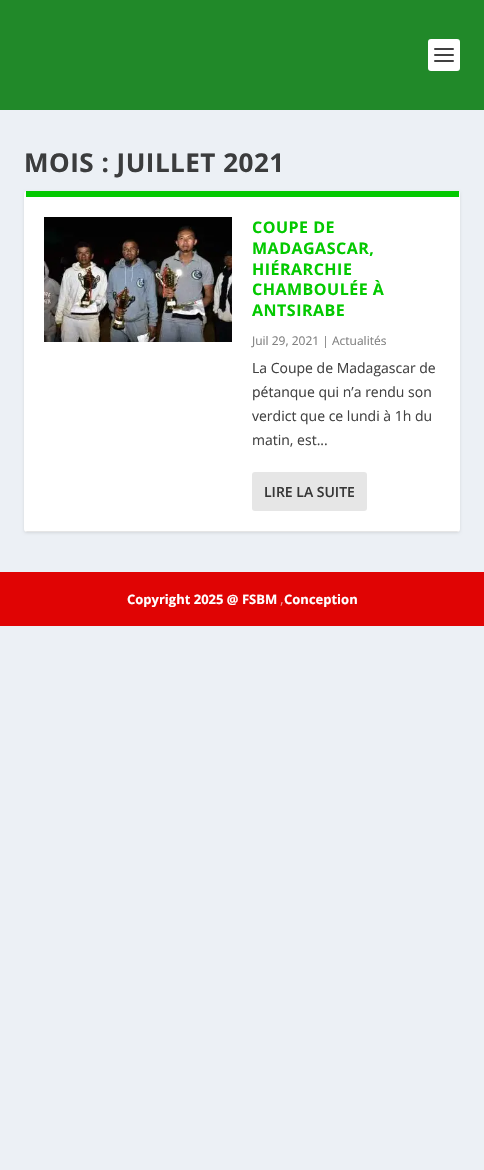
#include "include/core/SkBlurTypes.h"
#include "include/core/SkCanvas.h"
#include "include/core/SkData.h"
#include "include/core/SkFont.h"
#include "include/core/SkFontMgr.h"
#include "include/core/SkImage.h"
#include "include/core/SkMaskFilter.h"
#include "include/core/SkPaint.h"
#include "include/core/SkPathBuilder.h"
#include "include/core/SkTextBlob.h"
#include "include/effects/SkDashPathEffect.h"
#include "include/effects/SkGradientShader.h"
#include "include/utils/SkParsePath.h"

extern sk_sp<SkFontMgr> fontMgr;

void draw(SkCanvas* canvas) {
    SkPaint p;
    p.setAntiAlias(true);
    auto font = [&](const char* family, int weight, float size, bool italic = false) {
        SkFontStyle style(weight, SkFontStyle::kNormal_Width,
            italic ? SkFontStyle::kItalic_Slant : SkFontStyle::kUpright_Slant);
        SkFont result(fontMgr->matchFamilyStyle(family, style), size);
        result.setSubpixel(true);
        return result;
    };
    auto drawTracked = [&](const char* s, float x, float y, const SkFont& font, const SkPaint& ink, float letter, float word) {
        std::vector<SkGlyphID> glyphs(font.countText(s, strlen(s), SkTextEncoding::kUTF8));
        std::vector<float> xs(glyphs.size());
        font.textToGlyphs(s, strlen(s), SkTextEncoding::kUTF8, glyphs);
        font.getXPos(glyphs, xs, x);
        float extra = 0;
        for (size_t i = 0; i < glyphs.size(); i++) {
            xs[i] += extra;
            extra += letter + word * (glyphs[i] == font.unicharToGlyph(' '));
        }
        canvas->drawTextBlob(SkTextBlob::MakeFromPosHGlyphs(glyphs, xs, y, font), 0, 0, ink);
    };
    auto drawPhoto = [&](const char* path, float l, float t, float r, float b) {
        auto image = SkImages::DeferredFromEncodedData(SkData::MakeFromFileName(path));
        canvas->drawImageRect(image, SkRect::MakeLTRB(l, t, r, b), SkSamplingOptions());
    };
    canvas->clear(0xFFECF0F5);
    p.setColor(0xFF218929);
    canvas->drawRect(SkRect::MakeLTRB(0, 0, 484, 110), p);
    p.setColor(0xFFFFFFFF);
    canvas->drawRoundRect(SkRect::MakeLTRB(428, 39, 460, 71), 3, 3, p);
    p.setColor(0xFF404040);
    canvas->drawRoundRect(SkRect::MakeLTRB(434, 48, 454, 50), 1, 1, p);
    canvas->drawRoundRect(SkRect::MakeLTRB(434, 54, 454, 56), 1, 1, p);
    canvas->drawRoundRect(SkRect::MakeLTRB(434, 60, 454, 62), 1, 1, p);
    auto font1 = font("Open Sans", 700, 26);
    p.setColor(0xFF3B3C3D);
    drawTracked("MOIS : JUILLET 2021", 24, 172, font1, p, 0.5f, 0);
    p.setColor(0x1A000000);
    p.setMaskFilter(SkMaskFilter::MakeBlur(kNormal_SkBlurStyle, 1.5f));
    canvas->drawRoundRect(SkRect::MakeLTRB(24, 192, 460, 533), 3, 3, p);
    p.setMaskFilter(nullptr);
    p.setColor(0xFFFFFFFF);
    canvas->drawRoundRect(SkRect::MakeLTRB(24, 191, 460, 532), 3, 3, p);
    p.setColor(0xFF03C900);
    canvas->drawRect(SkRect::MakeLTRB(26, 191, 459, 197), p);
    p.setColor(0xFFE5E5E5);
    canvas->drawPath(SkPathBuilder().moveTo(27, 532).lineTo(457, 532).lineTo(459, 531).lineTo(25, 531).close().detach(), p);
    drawPhoto("media/1.png", 44, 217, 232, 342);
    auto font2 = font("Open Sans", 700, 16);
    p.setColor(0xFF03C900);
    {
        const struct { const char* s; float x, y; } items[] = {
            {"COUPE DE", 252, 233},
            {"MADAGASCAR,", 252, 254},
            {"HIÉRARCHIE", 252, 275},
            {"CHAMBOULÉE À", 252, 295},
            {"ANTSIRABE", 252, 316},
        };
        for (auto [s, x, y] : items) {
            drawTracked(s, x, y, font2, p, 0.5f, 0);
        }
    }
    auto font3 = font("Open Sans", 400, 12);
    p.setColor(0xFF808080);
    canvas->drawString("Juil 29, 2021 | Actualités", 252, 345, font3, p);
    auto font4 = font("Open Sans", 400, 14);
    p.setColor(0xFF424242);
    {
        const struct { const char* s; float x, y; } items[] = {
            {"La Coupe de Madagascar de", 252, 373},
            {"pétanque qui n’a rendu son", 252, 397},
            {"verdict que ce lundi à 1h du", 252, 421},
            {"matin, est...", 252, 445},
        };
        for (auto [s, x, y] : items) {
            canvas->drawString(s, x, y, font4, p);
        }
    }
    p.setColor(0xFFE6E6E6);
    canvas->drawRoundRect(SkRect::MakeLTRB(252, 472, 367, 511), 3, 3, p);
    auto font5 = font("Open Sans", 600, 14);
    p.setColor(0xFF373737);
    canvas->drawString("LIRE LA SUITE", 264, 497, font5, p);
    p.setColor(0xFFE00404);
    canvas->drawRect(SkRect::MakeLTRB(0, 572, 484, 626), p);
    auto font6 = font("Open Sans", 700, 13);
    p.setColor(0xFFFFFFFF);
    canvas->drawString("Copyright 2025 @ FSBM", 127, 604, font6, p);
    p.setColor(0xFFF39B9B);
    canvas->drawString(",", 280, 604, font4, p);
    p.setColor(0xFFFFFFFF);
    canvas->drawString("Conception", 284, 604, font6, p);
}
